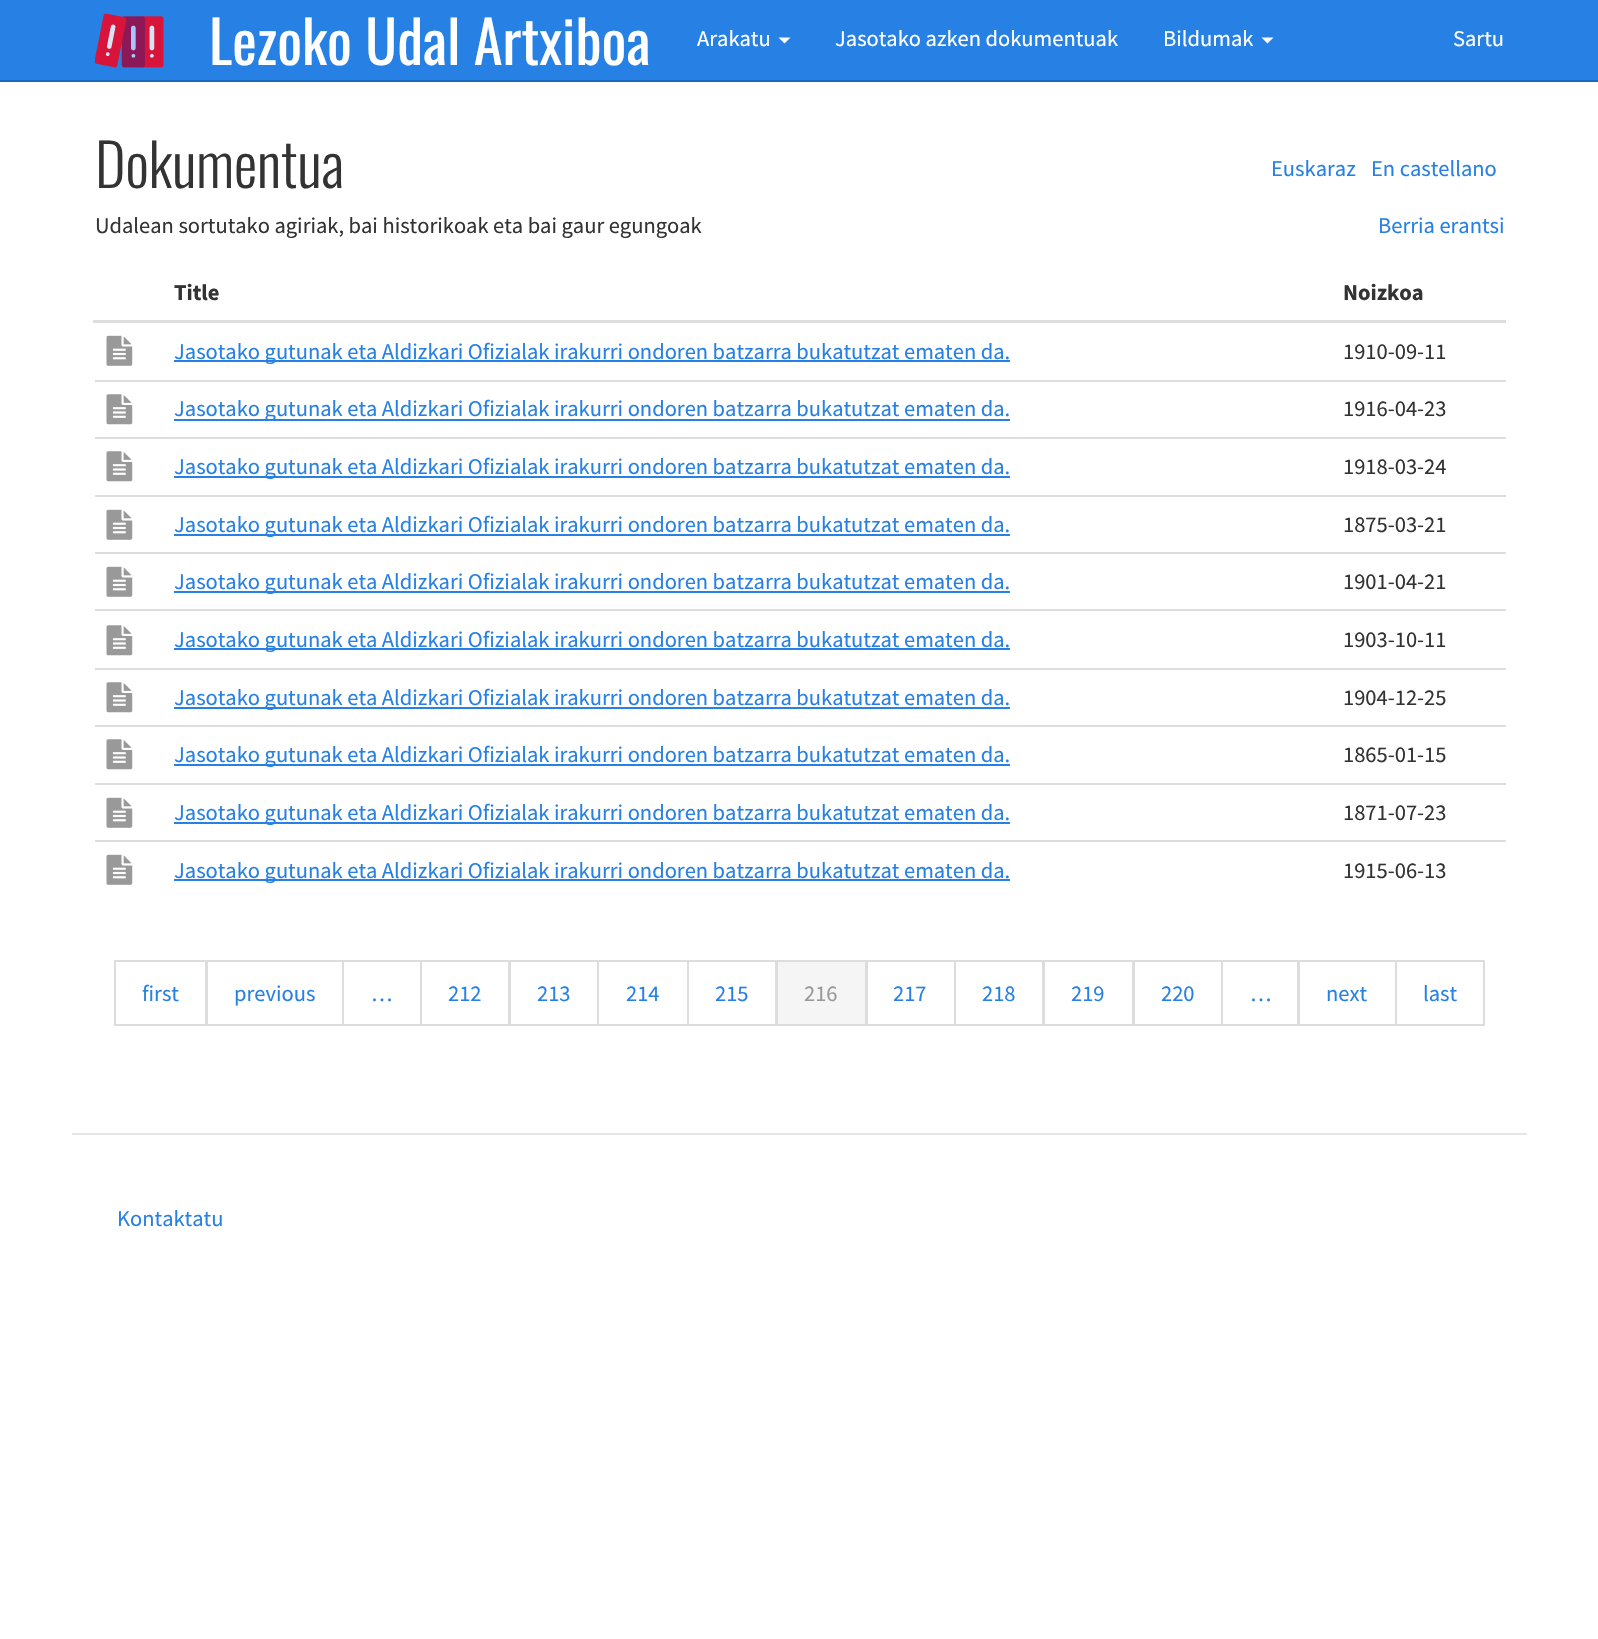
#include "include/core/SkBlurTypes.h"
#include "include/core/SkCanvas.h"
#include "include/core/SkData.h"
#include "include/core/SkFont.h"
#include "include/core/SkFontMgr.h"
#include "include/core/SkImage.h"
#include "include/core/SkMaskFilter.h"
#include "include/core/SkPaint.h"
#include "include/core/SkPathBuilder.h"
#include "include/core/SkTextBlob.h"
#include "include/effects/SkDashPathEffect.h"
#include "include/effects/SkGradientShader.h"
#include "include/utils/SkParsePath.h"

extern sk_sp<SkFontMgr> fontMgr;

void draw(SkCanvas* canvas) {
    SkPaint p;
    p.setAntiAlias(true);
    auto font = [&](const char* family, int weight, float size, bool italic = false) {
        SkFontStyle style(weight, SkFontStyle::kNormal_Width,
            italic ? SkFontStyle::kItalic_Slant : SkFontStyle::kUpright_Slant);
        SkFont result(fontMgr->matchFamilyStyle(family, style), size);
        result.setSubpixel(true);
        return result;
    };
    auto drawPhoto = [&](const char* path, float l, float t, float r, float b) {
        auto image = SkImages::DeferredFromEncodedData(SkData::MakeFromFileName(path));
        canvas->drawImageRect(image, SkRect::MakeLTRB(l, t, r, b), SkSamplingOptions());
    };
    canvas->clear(0xFFFFFFFF);
    p.setColor(0xFF2780E3);
    canvas->drawRect(SkRect::MakeLTRB(0, 0, 1598, 80), p);
    p.setColor(0xFF1967BE);
    canvas->drawRect(SkRect::MakeLTRB(0, 80, 1598, 82), p);
    drawPhoto("media/1.png", 95, 13, 164, 68);
    auto font1 = font("Oswald", 400, 58.5f);
    p.setColor(0xFFFFFFFF);
    canvas->drawString("Lezoko Udal Artxiboa", 209, 65, font1, p);
    auto font2 = font("Source Sans Pro", 400, 22.5f);
    canvas->drawString("Arakatu", 697, 46, font2, p);
    canvas->drawPath(SkPathBuilder().moveTo(778.5f, 37.5f).lineTo(790.5f, 37.5f).lineTo(784.5f, 43.5f).close().detach(), p);
    canvas->drawString("Jasotako azken dokumentuak", 835, 46, font2, p);
    canvas->drawString("Bildumak", 1163, 46, font2, p);
    canvas->drawPath(SkPathBuilder().moveTo(1261.5f, 37.5f).lineTo(1273.5f, 37.5f).lineTo(1267.5f, 43.5f).close().detach(), p);
    canvas->drawString("Sartu", 1453, 46, font2, p);
    auto font3 = font("Oswald", 300, 58.5f);
    p.setColor(0xFF333333);
    canvas->drawString("Dokumentua", 95, 188, font3, p);
    p.setColor(0xFF2780E3);
    canvas->drawString("Euskaraz", 1271, 176, font2, p);
    canvas->drawString("En castellano", 1371, 176, font2, p);
    p.setColor(0xFF333333);
    canvas->drawString("Udalean sortutako agiriak, bai historikoak eta bai gaur egungoak", 95, 233, font2, p);
    p.setColor(0xFF2780E3);
    canvas->drawString("Berria erantsi", 1378, 233, font2, p);
    auto font4 = font("Source Sans Pro", 700, 22.5f);
    p.setColor(0xFF333333);
    canvas->drawString("Title", 174, 300, font4, p);
    p.setColor(0xFFDDDDDD);
    canvas->drawRect(SkRect::MakeLTRB(93, 320, 1506, 323), p);
    p.setColor(0xFF333333);
    canvas->drawString("Noizkoa", 1343, 300, font4, p);
    drawPhoto("media/2.png", 106, 335, 133, 366);
    p.setColor(0xFF2780E3);
    canvas->drawRect(SkRect::MakeLTRB(174, 360, 1010, 362), p);
    canvas->drawString("Jasotako gutunak eta Aldizkari Ofizialak irakurri ondoren batzarra bukatutzat ematen da.", 174, 359, font2, p);
    p.setColor(0xFF333333);
    canvas->drawString("1910-09-11", 1343, 359, font2, p);
    drawPhoto("media/3.png", 106, 394, 133, 425);
    p.setColor(0xFF2780E3);
    canvas->drawRect(SkRect::MakeLTRB(174, 419, 1010, 421), p);
    canvas->drawString("Jasotako gutunak eta Aldizkari Ofizialak irakurri ondoren batzarra bukatutzat ematen da.", 174, 416, font2, p);
    p.setColor(0xFFDDDDDD);
    canvas->drawRect(SkRect::MakeLTRB(95, 380, 1506, 382), p);
    p.setColor(0xFF333333);
    canvas->drawString("1916-04-23", 1343, 416, font2, p);
    drawPhoto("media/3.png", 106, 451, 133, 482);
    p.setColor(0xFF2780E3);
    canvas->drawRect(SkRect::MakeLTRB(174, 476, 1010, 478), p);
    canvas->drawString("Jasotako gutunak eta Aldizkari Ofizialak irakurri ondoren batzarra bukatutzat ematen da.", 174, 474, font2, p);
    p.setColor(0xFFDDDDDD);
    canvas->drawRect(SkRect::MakeLTRB(95, 437, 1506, 439), p);
    p.setColor(0xFF333333);
    canvas->drawString("1918-03-24", 1343, 474, font2, p);
    drawPhoto("media/2.png", 106, 509, 133, 540);
    p.setColor(0xFF2780E3);
    canvas->drawRect(SkRect::MakeLTRB(174, 534, 1010, 536), p);
    canvas->drawString("Jasotako gutunak eta Aldizkari Ofizialak irakurri ondoren batzarra bukatutzat ematen da.", 174, 532, font2, p);
    p.setColor(0xFFDDDDDD);
    canvas->drawRect(SkRect::MakeLTRB(95, 495, 1506, 497), p);
    p.setColor(0xFF333333);
    canvas->drawString("1875-03-21", 1343, 532, font2, p);
    drawPhoto("media/2.png", 106, 566, 133, 597);
    p.setColor(0xFF2780E3);
    canvas->drawRect(SkRect::MakeLTRB(174, 591, 1010, 593), p);
    canvas->drawString("Jasotako gutunak eta Aldizkari Ofizialak irakurri ondoren batzarra bukatutzat ematen da.", 174, 589, font2, p);
    p.setColor(0xFFDDDDDD);
    canvas->drawRect(SkRect::MakeLTRB(95, 552, 1506, 554), p);
    p.setColor(0xFF333333);
    canvas->drawString("1901-04-21", 1343, 589, font2, p);
    drawPhoto("media/3.png", 106, 625, 133, 656);
    p.setColor(0xFF2780E3);
    canvas->drawRect(SkRect::MakeLTRB(174, 648, 1010, 650), p);
    canvas->drawString("Jasotako gutunak eta Aldizkari Ofizialak irakurri ondoren batzarra bukatutzat ematen da.", 174, 647, font2, p);
    p.setColor(0xFFDDDDDD);
    canvas->drawRect(SkRect::MakeLTRB(95, 609, 1506, 611), p);
    p.setColor(0xFF333333);
    canvas->drawString("1903-10-11", 1343, 647, font2, p);
    drawPhoto("media/3.png", 106, 682, 133, 713);
    p.setColor(0xFF2780E3);
    canvas->drawRect(SkRect::MakeLTRB(174, 707, 1010, 709), p);
    canvas->drawString("Jasotako gutunak eta Aldizkari Ofizialak irakurri ondoren batzarra bukatutzat ematen da.", 174, 705, font2, p);
    p.setColor(0xFFDDDDDD);
    canvas->drawRect(SkRect::MakeLTRB(95, 668, 1506, 670), p);
    p.setColor(0xFF333333);
    canvas->drawString("1904-12-25", 1343, 705, font2, p);
    drawPhoto("media/3.png", 106, 739, 133, 770);
    p.setColor(0xFF2780E3);
    canvas->drawRect(SkRect::MakeLTRB(174, 764, 1010, 766), p);
    canvas->drawString("Jasotako gutunak eta Aldizkari Ofizialak irakurri ondoren batzarra bukatutzat ematen da.", 174, 762, font2, p);
    p.setColor(0xFFDDDDDD);
    canvas->drawRect(SkRect::MakeLTRB(95, 725, 1506, 727), p);
    p.setColor(0xFF333333);
    canvas->drawString("1865-01-15", 1343, 762, font2, p);
    drawPhoto("media/2.png", 106, 797, 133, 828);
    p.setColor(0xFF2780E3);
    canvas->drawRect(SkRect::MakeLTRB(174, 822, 1010, 824), p);
    canvas->drawString("Jasotako gutunak eta Aldizkari Ofizialak irakurri ondoren batzarra bukatutzat ematen da.", 174, 820, font2, p);
    p.setColor(0xFFDDDDDD);
    canvas->drawRect(SkRect::MakeLTRB(95, 783, 1506, 785), p);
    p.setColor(0xFF333333);
    canvas->drawString("1871-07-23", 1343, 820, font2, p);
    drawPhoto("media/2.png", 106, 854, 133, 885);
    p.setColor(0xFF2780E3);
    canvas->drawRect(SkRect::MakeLTRB(174, 879, 1010, 881), p);
    canvas->drawString("Jasotako gutunak eta Aldizkari Ofizialak irakurri ondoren batzarra bukatutzat ematen da.", 174, 878, font2, p);
    p.setColor(0xFFDDDDDD);
    canvas->drawRect(SkRect::MakeLTRB(95, 840, 1506, 842), p);
    p.setColor(0xFF333333);
    canvas->drawString("1915-06-13", 1343, 878, font2, p);
    p.setStyle(SkPaint::kStroke_Style);
    p.setStrokeWidth(2);
    p.setColor(0xFFDDDDDD);
    canvas->drawRect(SkRect::MakeLTRB(115, 961, 206, 1025), p);
    p.setStyle(SkPaint::kFill_Style);
    p.setColor(0xFF2780E3);
    canvas->drawString("first", 142, 1001, font2, p);
    p.setStyle(SkPaint::kStroke_Style);
    p.setColor(0xFFDDDDDD);
    canvas->drawRect(SkRect::MakeLTRB(207, 961, 343, 1025), p);
    p.setStyle(SkPaint::kFill_Style);
    p.setColor(0xFF2780E3);
    canvas->drawString("previous", 234, 1001, font2, p);
    p.setStyle(SkPaint::kStroke_Style);
    p.setColor(0xFFDDDDDD);
    canvas->drawRect(SkRect::MakeLTRB(343, 961, 421, 1025), p);
    p.setStyle(SkPaint::kFill_Style);
    p.setColor(0xFF2780E3);
    canvas->drawString("…", 371, 1001, font2, p);
    p.setStyle(SkPaint::kStroke_Style);
    p.setColor(0xFFDDDDDD);
    canvas->drawRect(SkRect::MakeLTRB(421, 961, 509, 1025), p);
    p.setStyle(SkPaint::kFill_Style);
    p.setColor(0xFF2780E3);
    canvas->drawString("212", 448, 1001, font2, p);
    p.setStyle(SkPaint::kStroke_Style);
    p.setColor(0xFFDDDDDD);
    canvas->drawRect(SkRect::MakeLTRB(510, 961, 598, 1025), p);
    p.setStyle(SkPaint::kFill_Style);
    p.setColor(0xFF2780E3);
    canvas->drawString("213", 537, 1001, font2, p);
    p.setStyle(SkPaint::kStroke_Style);
    p.setColor(0xFFDDDDDD);
    canvas->drawRect(SkRect::MakeLTRB(598, 961, 688, 1025), p);
    p.setStyle(SkPaint::kFill_Style);
    p.setColor(0xFF2780E3);
    canvas->drawString("214", 626, 1001, font2, p);
    p.setStyle(SkPaint::kStroke_Style);
    p.setColor(0xFFDDDDDD);
    canvas->drawRect(SkRect::MakeLTRB(688, 961, 776, 1025), p);
    p.setStyle(SkPaint::kFill_Style);
    p.setColor(0xFF2780E3);
    canvas->drawString("215", 715, 1001, font2, p);
    p.setStyle(SkPaint::kStroke_Style);
    p.setColor(0xFFDDDDDD);
    canvas->drawRect(SkRect::MakeLTRB(867, 961, 955, 1025), p);
    p.setStyle(SkPaint::kFill_Style);
    p.setColor(0xFFF5F5F5);
    canvas->drawRect(SkRect::MakeLTRB(777, 961, 866, 1025), p);
    p.setStyle(SkPaint::kStroke_Style);
    p.setColor(0xFFDDDDDD);
    canvas->drawRect(SkRect::MakeLTRB(777, 961, 866, 1025), p);
    p.setStyle(SkPaint::kFill_Style);
    p.setColor(0xFF999999);
    canvas->drawString("216", 804, 1001, font2, p);
    p.setColor(0xFF2780E3);
    canvas->drawString("217", 893, 1001, font2, p);
    p.setStyle(SkPaint::kStroke_Style);
    p.setColor(0xFFDDDDDD);
    canvas->drawRect(SkRect::MakeLTRB(955, 961, 1043, 1025), p);
    p.setStyle(SkPaint::kFill_Style);
    p.setColor(0xFF2780E3);
    canvas->drawString("218", 982, 1001, font2, p);
    p.setStyle(SkPaint::kStroke_Style);
    p.setColor(0xFFDDDDDD);
    canvas->drawRect(SkRect::MakeLTRB(1044, 961, 1133, 1025), p);
    p.setStyle(SkPaint::kFill_Style);
    p.setColor(0xFF2780E3);
    canvas->drawString("219", 1071, 1001, font2, p);
    p.setStyle(SkPaint::kStroke_Style);
    p.setColor(0xFFDDDDDD);
    canvas->drawRect(SkRect::MakeLTRB(1134, 961, 1222, 1025), p);
    p.setStyle(SkPaint::kFill_Style);
    p.setColor(0xFF2780E3);
    canvas->drawString("220", 1161, 1001, font2, p);
    p.setStyle(SkPaint::kStroke_Style);
    p.setColor(0xFFDDDDDD);
    canvas->drawRect(SkRect::MakeLTRB(1222, 961, 1298, 1025), p);
    p.setStyle(SkPaint::kFill_Style);
    p.setColor(0xFF2780E3);
    canvas->drawString("…", 1250, 1001, font2, p);
    p.setStyle(SkPaint::kStroke_Style);
    p.setColor(0xFFDDDDDD);
    canvas->drawRect(SkRect::MakeLTRB(1299, 961, 1396, 1025), p);
    p.setStyle(SkPaint::kFill_Style);
    p.setColor(0xFF2780E3);
    canvas->drawString("next", 1326, 1001, font2, p);
    p.setStyle(SkPaint::kStroke_Style);
    p.setColor(0xFFDDDDDD);
    canvas->drawRect(SkRect::MakeLTRB(1396, 961, 1484, 1025), p);
    p.setStyle(SkPaint::kFill_Style);
    p.setColor(0xFF2780E3);
    canvas->drawString("last", 1423, 1001, font2, p);
    p.setColor(0xFFE5E5E5);
    canvas->drawRect(SkRect::MakeLTRB(72, 1133, 1527, 1135), p);
    p.setColor(0xFF2780E3);
    canvas->drawString("Kontaktatu", 117, 1226, font2, p);
}
